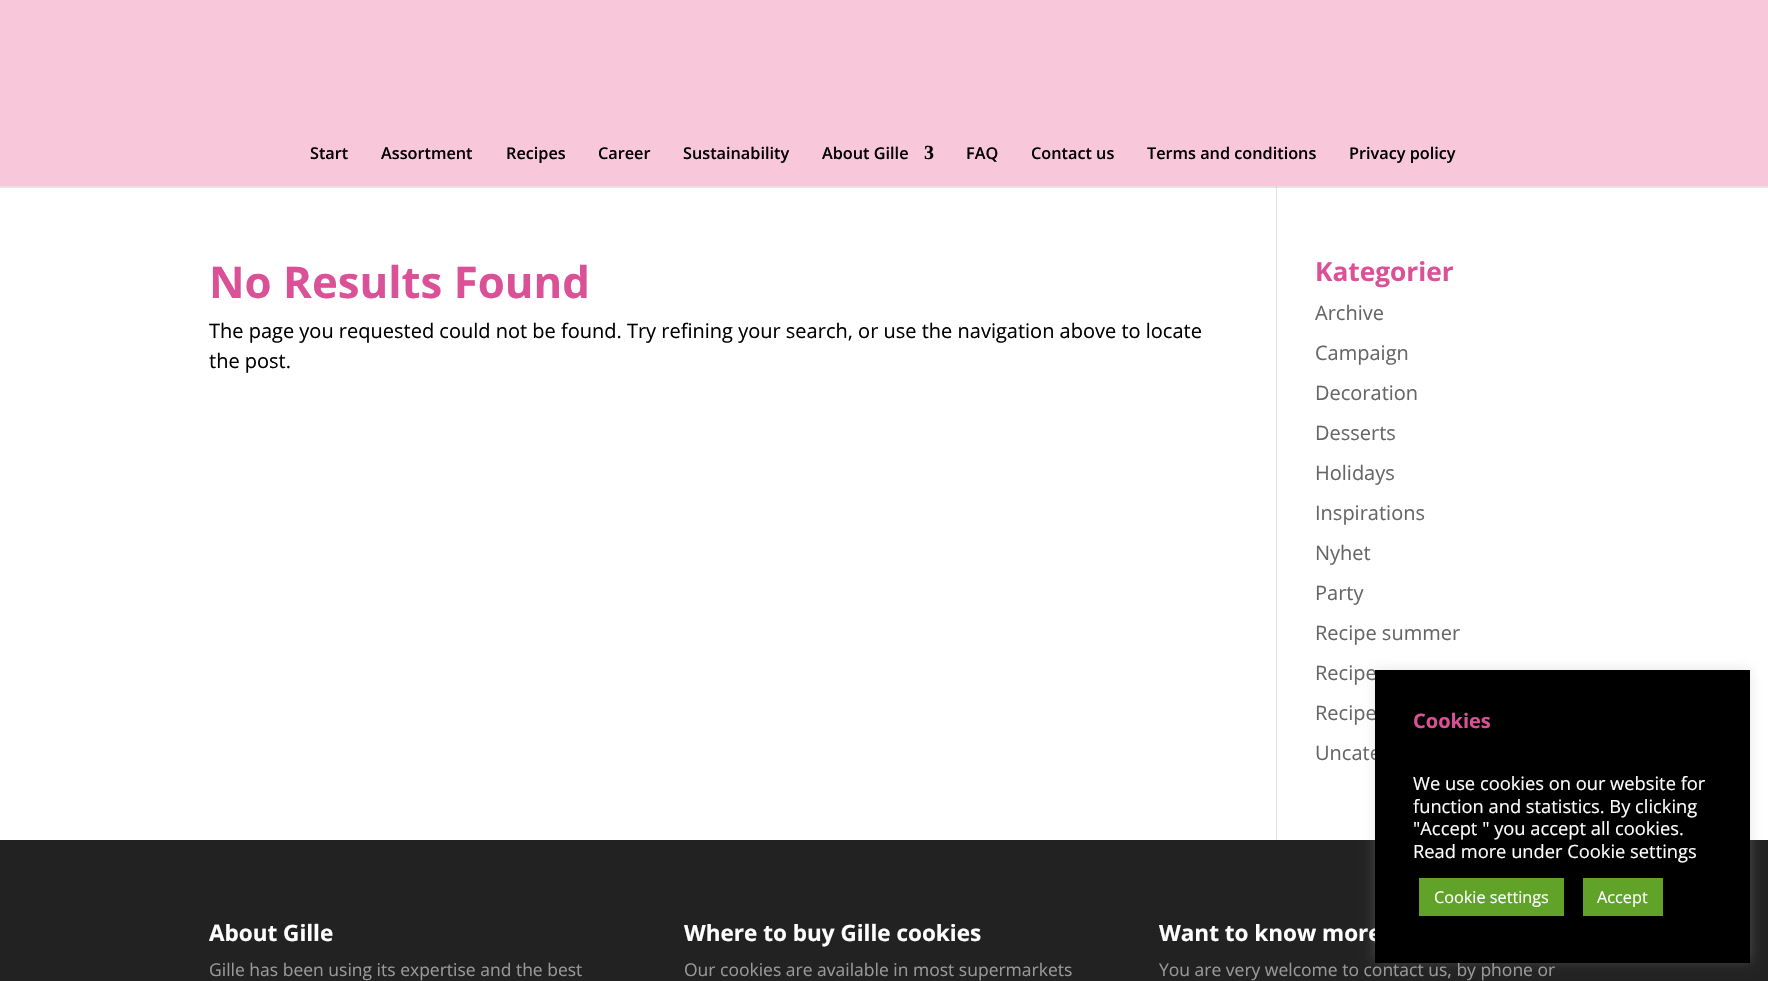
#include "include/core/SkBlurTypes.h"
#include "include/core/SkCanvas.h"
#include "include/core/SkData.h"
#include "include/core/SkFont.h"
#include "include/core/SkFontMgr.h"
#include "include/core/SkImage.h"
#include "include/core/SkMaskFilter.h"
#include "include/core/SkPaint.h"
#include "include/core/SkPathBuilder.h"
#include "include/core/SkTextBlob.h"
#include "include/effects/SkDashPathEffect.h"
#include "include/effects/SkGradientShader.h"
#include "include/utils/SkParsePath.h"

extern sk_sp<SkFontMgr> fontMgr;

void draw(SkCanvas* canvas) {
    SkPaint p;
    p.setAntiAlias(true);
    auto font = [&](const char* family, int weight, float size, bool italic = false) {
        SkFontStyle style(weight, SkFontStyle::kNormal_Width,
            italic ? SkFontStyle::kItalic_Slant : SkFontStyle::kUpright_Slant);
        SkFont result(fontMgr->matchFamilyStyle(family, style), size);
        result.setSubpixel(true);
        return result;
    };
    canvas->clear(0xFFFFFFFF);
    p.setColor(0xFFE2E2E2);
    canvas->drawRect(SkRect::MakeLTRB(1276, 186, 1277, 840), p);
    p.setColor(0x1A000000);
    canvas->drawPath(SkPathBuilder().moveTo(0, 186).lineTo(0, 188).lineTo(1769, 188).lineTo(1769, 1).lineTo(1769, 186).close().detach(), p);
    p.setColor(0xFFF8C8DA);
    canvas->drawRect(SkRect::MakeLTRB(0, 0, 1768, 186), p);
    auto font1 = font("Open Sans", 600, 16.25f);
    p.setColor(0xFF000000);
    {
        const struct { const char* s; float x, y; } items[] = {
            {"Start", 310, 159},
            {"Assortment", 381, 159},
            {"Recipes", 506, 159},
            {"Career", 598, 159},
            {"Sustainability", 683, 159},
            {"About Gille", 822, 159},
        };
        for (auto [s, x, y] : items) {
            canvas->drawString(s, x, y, font1, p);
        }
    }
    auto font2 = font("Liberation Serif", 700, 20);
    canvas->drawString("3", 924, 159, font2, p);
    {
        const struct { const char* s; float x, y; } items[] = {
            {"FAQ", 966, 159},
            {"Contact us", 1031, 159},
            {"Terms and conditions", 1147, 159},
            {"Privacy policy", 1349, 159},
        };
        for (auto [s, x, y] : items) {
            canvas->drawString(s, x, y, font1, p);
        }
    }
    auto font3 = font("Open Sans", 700, 43.75f);
    p.setColor(0xFFDB5197);
    canvas->drawString("No Results Found", 209, 298, font3, p);
    auto font4 = font("Open Sans", 400, 20);
    p.setColor(0xFF000000);
    canvas->drawString("The page you requested could not be found. Try refining your search, or use the navigation above to locate", 209, 338, font4, p);
    canvas->drawString("the post.", 209, 368, font4, p);
    auto font5 = font("Open Sans", 700, 26.25f);
    p.setColor(0xFFDB5197);
    canvas->drawString("Kategorier", 1315, 281, font5, p);
    p.setColor(0xFF666666);
    {
        const struct { const char* s; float x, y; } items[] = {
            {"Archive", 1315, 320},
            {"Campaign", 1315, 360},
            {"Decoration", 1315, 400},
            {"Desserts", 1315, 440},
            {"Holidays", 1315, 480},
            {"Inspirations", 1315, 520},
            {"Nyhet", 1315, 560},
            {"Party", 1315, 600},
            {"Recipe summer", 1315, 640},
            {"Recipe", 1315, 680},
            {"Recipe", 1315, 720},
            {"Uncate", 1315, 760},
        };
        for (auto [s, x, y] : items) {
            canvas->drawString(s, x, y, font4, p);
        }
    }
    p.setColor(0xFF222222);
    canvas->drawRect(SkRect::MakeLTRB(0, 840, 1768, 981), p);
    auto font6 = font("Open Sans", 700, 22.5f);
    p.setColor(0xFFFFFFFF);
    canvas->drawString("About Gille", 209, 941, font6, p);
    auto font7 = font("Open Sans", 400, 17.5f);
    p.setColor(0xFF999999);
    canvas->drawString("Gille has been using its expertise and the best", 209, 976, font7, p);
    p.setColor(0xFFFFFFFF);
    canvas->drawString("Where to buy Gille cookies", 684, 941, font6, p);
    p.setColor(0xFF999999);
    canvas->drawString("Our cookies are available in most supermarkets", 684, 976, font7, p);
    p.setColor(0xFFFFFFFF);
    canvas->drawString("Want to know more", 1159, 941, font6, p);
    p.setColor(0xFF999999);
    canvas->drawString("You are very welcome to contact us, by phone or", 1159, 976, font7, p);
    p.setColor(0x4DACABAB);
    p.setMaskFilter(SkMaskFilter::MakeBlur(kNormal_SkBlurStyle, 6));
    canvas->drawRect(SkRect::MakeLTRB(1375, 669, 1750, 961), p);
    p.setMaskFilter(nullptr);
    p.setColor(0xFF000000);
    canvas->drawRect(SkRect::MakeLTRB(1375, 670, 1750, 963), p);
    auto font8 = font("Open Sans", 700, 20);
    p.setColor(0xFFDB5197);
    canvas->drawString("Cookies", 1413, 728, font8, p);
    auto font9 = font("Open Sans", 400, 18.3f);
    p.setColor(0xFFFFFFFF);
    {
        const struct { const char* s; float x, y; } items[] = {
            {"We use cookies on our website for", 1413, 790},
            {"function and statistics. By clicking", 1413, 813},
            {"\"Accept \" you accept all cookies.", 1413, 835},
            {"Read more under Cookie settings", 1413, 858},
        };
        for (auto [s, x, y] : items) {
            canvas->drawString(s, x, y, font9, p);
        }
    }
    p.setColor(0xFF61A229);
    canvas->drawRect(SkRect::MakeLTRB(1419, 878, 1564, 916), p);
    auto font10 = font("Open Sans", 400, 16.25f);
    p.setColor(0xFFFFFFFF);
    canvas->drawString("Cookie settings", 1434, 903, font10, p);
    p.setColor(0xFF61A229);
    canvas->drawRect(SkRect::MakeLTRB(1583, 878, 1663, 916), p);
    p.setColor(0xFFFFFFFF);
    canvas->drawString("Accept", 1597, 903, font10, p);
}
